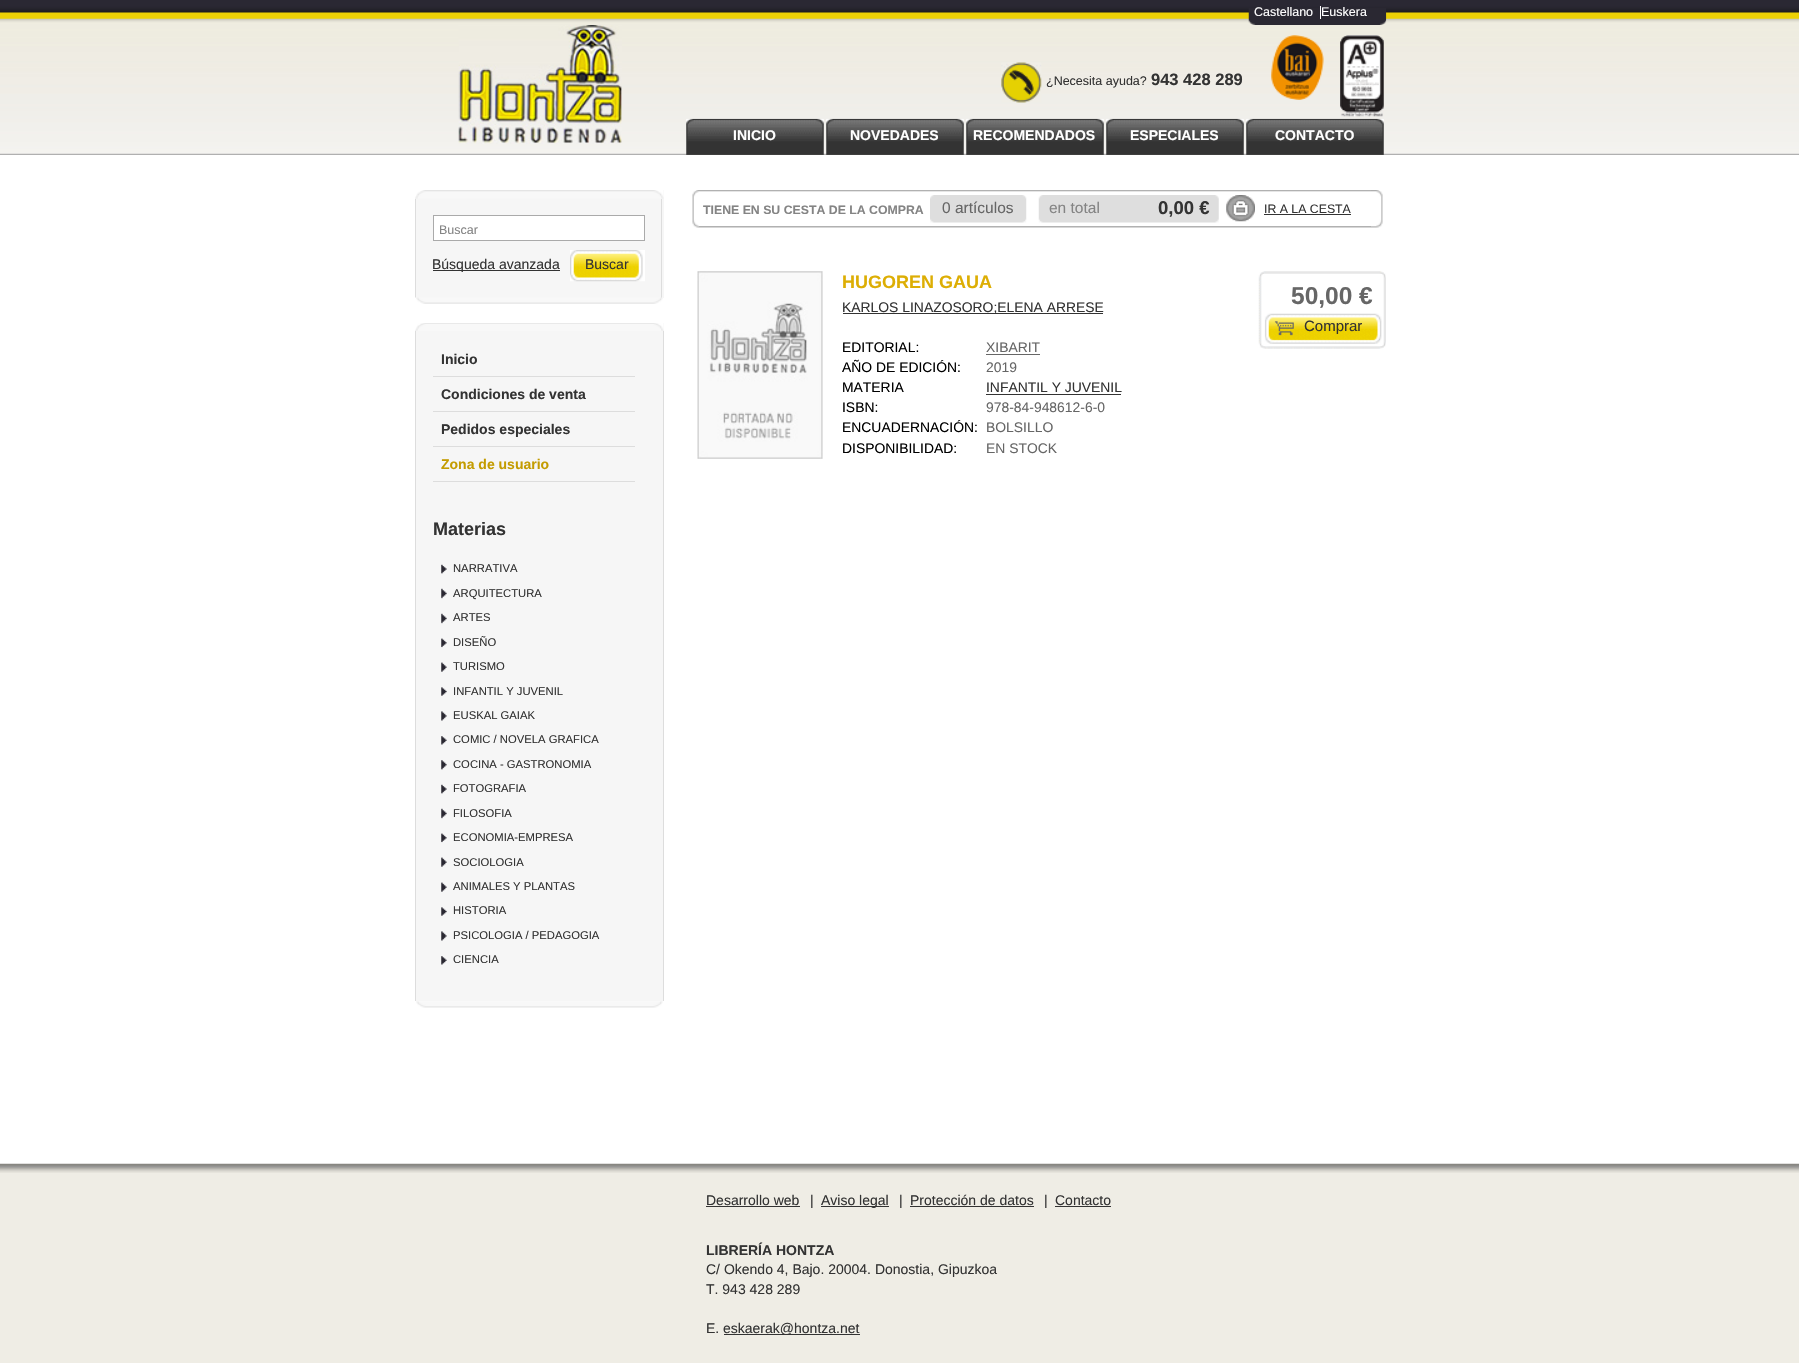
#include "include/core/SkBlurTypes.h"
#include "include/core/SkCanvas.h"
#include "include/core/SkData.h"
#include "include/core/SkFont.h"
#include "include/core/SkFontMgr.h"
#include "include/core/SkImage.h"
#include "include/core/SkMaskFilter.h"
#include "include/core/SkPaint.h"
#include "include/core/SkPathBuilder.h"
#include "include/core/SkTextBlob.h"
#include "include/effects/SkDashPathEffect.h"
#include "include/effects/SkGradientShader.h"
#include "include/utils/SkParsePath.h"

extern sk_sp<SkFontMgr> fontMgr;

void draw(SkCanvas* canvas) {
    SkPaint p;
    p.setAntiAlias(true);
    auto font = [&](const char* family, int weight, float size, bool italic = false) {
        SkFontStyle style(weight, SkFontStyle::kNormal_Width,
            italic ? SkFontStyle::kItalic_Slant : SkFontStyle::kUpright_Slant);
        SkFont result(fontMgr->matchFamilyStyle(family, style), size);
        result.setSubpixel(true);
        return result;
    };
    auto drawPhoto = [&](const char* path, float l, float t, float r, float b) {
        auto image = SkImages::DeferredFromEncodedData(SkData::MakeFromFileName(path));
        canvas->drawImageRect(image, SkRect::MakeLTRB(l, t, r, b), SkSamplingOptions());
    };
    canvas->clear(0xFFFFFFFF);
    drawPhoto("media/1.png", 0, 0, 1799, 155);
    drawPhoto("media/2.png", 1248, 8, 1387, 25);
    p.setColor(0xFFFFFFFF);
    canvas->drawRect(SkRect::MakeLTRB(1320, 6, 1321, 19), p);
    auto font1 = font("Liberation Sans", 400, 12.5f);
    canvas->drawString("Castellano", 1254, 16, font1, p);
    canvas->drawString("Euskera", 1321, 16, font1, p);
    drawPhoto("media/3.png", 458, 25, 622, 144);
    drawPhoto("media/4.png", 1001, 62, 1042, 103);
    p.setColor(0xFF333333);
    canvas->drawString("¿Necesita ayuda?", 1046, 85, font1, p);
    auto font2 = font("Liberation Sans", 700, 16.5f);
    canvas->drawString("943 428 289", 1151, 85, font2, p);
    drawPhoto("media/5.png", 1271, 35, 1324, 100);
    drawPhoto("media/6.png", 1340, 35, 1384, 117);
    drawPhoto("media/7.png", 686, 118, 824, 155);
    auto font3 = font("Liberation Sans", 700, 14);
    p.setColor(0xFFFFFFFF);
    canvas->drawString("INICIO", 733, 140, font3, p);
    drawPhoto("media/8.png", 826, 118, 964, 155);
    canvas->drawString("NOVEDADES", 850, 140, font3, p);
    drawPhoto("media/7.png", 966, 118, 1104, 155);
    canvas->drawString("RECOMENDADOS", 973, 140, font3, p);
    drawPhoto("media/9.png", 1106, 118, 1244, 155);
    canvas->drawString("ESPECIALES", 1130, 140, font3, p);
    drawPhoto("media/10.png", 1246, 118, 1384, 155);
    canvas->drawString("CONTACTO", 1275, 140, font3, p);
    p.setColor(0xFFF6F6F6);
    canvas->drawRect(SkRect::MakeLTRB(415, 190, 664, 298), p);
    drawPhoto("media/11.png", 415, 190, 664, 199);
    p.setColor(0xFFDDDDDD);
    canvas->drawRect(SkRect::MakeLTRB(661, 199, 662, 298), p);
    canvas->drawRect(SkRect::MakeLTRB(415, 199, 416, 298), p);
    p.setColor(0xFFFFFFFF);
    canvas->drawRect(SkRect::MakeLTRB(433.5f, 215.5f, 644.5f, 240.5f), p);
    p.setStyle(SkPaint::kStroke_Style);
    p.setStrokeWidth(1);
    p.setColor(0xFFAAAAAA);
    canvas->drawRect(SkRect::MakeLTRB(433.5f, 215.5f, 644.5f, 240.5f), p);
    p.setStyle(SkPaint::kFill_Style);
    p.setColor(0xFF848484);
    canvas->drawString("Buscar", 439, 234, font1, p);
    drawPhoto("media/12.png", 570, 250, 645, 282);
    auto font4 = font("Liberation Sans", 400, 14);
    p.setColor(0xFF333333);
    canvas->drawString("Buscar", 585, 269, font4, p);
    canvas->drawRect(SkRect::MakeLTRB(433, 270, 560, 271), p);
    canvas->drawString("Búsqueda avanzada", 432, 269, font4, p);
    drawPhoto("media/13.png", 415, 297, 663, 304);
    p.setColor(0xFFF6F6F6);
    canvas->drawRect(SkRect::MakeLTRB(416, 323, 664, 1001), p);
    drawPhoto("media/14.png", 415, 323, 664, 331);
    {
        const struct { float l, t, r, b; SkColor color; } items[] = {
            {663, 331, 664, 1001, 0xFFDDDDDD},
            {415, 331, 416, 1001, 0xFFDDDDDD},
            {433, 376, 635, 377, 0xFFDDDDDD},
        };
        for (auto [l, t, r, b, color] : items) {
            p.setColor(color);
            canvas->drawRect(SkRect::MakeLTRB(l, t, r, b), p);
        }
    }
    p.setColor(0xFF333333);
    canvas->drawString("Inicio", 441, 364, font3, p);
    p.setColor(0xFFDDDDDD);
    canvas->drawRect(SkRect::MakeLTRB(433, 411, 635, 412), p);
    p.setColor(0xFF333333);
    canvas->drawString("Condiciones de venta", 441, 399, font3, p);
    p.setColor(0xFFDDDDDD);
    canvas->drawRect(SkRect::MakeLTRB(433, 446, 635, 447), p);
    p.setColor(0xFF333333);
    canvas->drawString("Pedidos especiales", 441, 434, font3, p);
    p.setColor(0xFFDDDDDD);
    canvas->drawRect(SkRect::MakeLTRB(433, 481, 635, 482), p);
    p.setColor(0xFFC49C00);
    canvas->drawString("Zona de usuario", 441, 469, font3, p);
    auto font5 = font("Liberation Sans", 700, 18);
    p.setColor(0xFF333333);
    canvas->drawString("Materias", 433, 535, font5, p);
    drawPhoto("media/15.png", 441, 564, 447, 574);
    auto font6 = font("Liberation Sans", 400, 11.25f);
    canvas->drawString("NARRATIVA", 453, 572, font6, p);
    drawPhoto("media/16.png", 441, 588, 447, 599);
    canvas->drawString("ARQUITECTURA", 453, 597, font6, p);
    drawPhoto("media/16.png", 441, 613, 447, 624);
    canvas->drawString("ARTES", 453, 621, font6, p);
    drawPhoto("media/17.png", 441, 638, 447, 648);
    canvas->drawString("DISEÑO", 453, 646, font6, p);
    drawPhoto("media/18.png", 441, 662, 447, 672);
    canvas->drawString("TURISMO", 453, 670, font6, p);
    drawPhoto("media/19.png", 441, 687, 447, 696);
    canvas->drawString("INFANTIL Y JUVENIL", 453, 695, font6, p);
    drawPhoto("media/20.png", 441, 711, 447, 721);
    canvas->drawString("EUSKAL GAIAK", 453, 719, font6, p);
    drawPhoto("media/21.png", 441, 736, 447, 745);
    canvas->drawString("COMIC / NOVELA GRAFICA", 453, 743, font6, p);
    drawPhoto("media/22.png", 441, 760, 447, 770);
    canvas->drawString("COCINA - GASTRONOMIA", 453, 768, font6, p);
    drawPhoto("media/15.png", 441, 784, 447, 794);
    canvas->drawString("FOTOGRAFIA", 453, 792, font6, p);
    drawPhoto("media/16.png", 441, 808, 447, 819);
    canvas->drawString("FILOSOFIA", 453, 817, font6, p);
    drawPhoto("media/17.png", 441, 833, 447, 843);
    canvas->drawString("ECONOMIA-EMPRESA", 453, 841, font6, p);
    drawPhoto("media/18.png", 441, 857, 447, 867);
    canvas->drawString("SOCIOLOGIA", 453, 866, font6, p);
    drawPhoto("media/18.png", 441, 882, 447, 892);
    canvas->drawString("ANIMALES Y PLANTAS", 453, 890, font6, p);
    drawPhoto("media/19.png", 441, 907, 447, 916);
    canvas->drawString("HISTORIA", 453, 914, font6, p);
    drawPhoto("media/20.png", 441, 931, 447, 941);
    canvas->drawString("PSICOLOGIA / PEDAGOGIA", 453, 939, font6, p);
    drawPhoto("media/21.png", 441, 956, 447, 965);
    canvas->drawString("CIENCIA", 453, 963, font6, p);
    drawPhoto("media/23.png", 416, 1001, 663, 1008);
    drawPhoto("media/24.png", 692, 190, 1383, 228);
    p.setColor(0xFFB1B1B1);
    canvas->drawRect(SkRect::MakeLTRB(699, 190, 1371, 191), p);
    canvas->drawRect(SkRect::MakeLTRB(699, 226, 1371, 227), p);
    auto font7 = font("Liberation Sans", 700, 12.3f);
    p.setColor(0xFF848484);
    canvas->drawString("TIENE EN SU CESTA DE LA COMPRA", 703, 214, font7, p);
    drawPhoto("media/25.png", 930, 195, 1027, 223);
    auto font8 = font("Liberation Sans", 400, 15.5f);
    p.setColor(0xFF666666);
    canvas->drawString("0 artículos", 942, 213, font8, p);
    drawPhoto("media/26.png", 1038, 195, 1219, 223);
    p.setColor(0xFF848484);
    canvas->drawString("en total", 1049, 213, font8, p);
    auto font9 = font("Liberation Sans", 700, 18.5f);
    p.setColor(0xFF333333);
    canvas->drawString("0,00 €", 1158, 214, font9, p);
    drawPhoto("media/27.png", 1226, 195, 1255, 222);
    auto font10 = font("Liberation Sans", 400, 12.3f);
    canvas->drawString("IR A LA CESTA", 1264, 213, font10, p);
    canvas->drawRect(SkRect::MakeLTRB(1264, 214, 1351, 215), p);
    p.setColor(0xFFF8F8F8);
    canvas->drawRect(SkRect::MakeLTRB(698, 271, 823, 459), p);
    drawPhoto("media/28.png", 697, 271, 823, 459);
    p.setColor(0xFFDDAE04);
    canvas->drawString("HUGOREN GAUA", 842, 288, font5, p);
    p.setColor(0xFF333333);
    canvas->drawRect(SkRect::MakeLTRB(843, 313, 1103, 314), p);
    auto font11 = font("Liberation Sans", 400, 13.9f);
    canvas->drawString("KARLOS LINAZOSORO;ELENA ARRESE", 842, 312, font11, p);
    p.setColor(0xFF000000);
    canvas->drawString("EDITORIAL:", 842, 352, font11, p);
    p.setColor(0xFF666666);
    canvas->drawString("XIBARIT", 986, 352, font11, p);
    canvas->drawRect(SkRect::MakeLTRB(986, 354, 1040, 355), p);
    p.setColor(0xFF000000);
    canvas->drawString("AÑO DE EDICIÓN:", 842, 372, font11, p);
    p.setColor(0xFF666666);
    canvas->drawString("2019", 986, 372, font11, p);
    p.setColor(0xFF000000);
    canvas->drawString("MATERIA", 842, 392, font11, p);
    p.setColor(0xFF333333);
    canvas->drawString("INFANTIL Y JUVENIL", 986, 392, font11, p);
    canvas->drawRect(SkRect::MakeLTRB(986, 394, 1121, 395), p);
    p.setColor(0xFF000000);
    canvas->drawString("ISBN:", 842, 412, font11, p);
    p.setColor(0xFF666666);
    canvas->drawString("978-84-948612-6-0", 986, 412, font11, p);
    p.setColor(0xFF000000);
    canvas->drawString("ENCUADERNACIÓN:", 842, 432, font11, p);
    p.setColor(0xFF666666);
    canvas->drawString("BOLSILLO", 986, 432, font11, p);
    p.setColor(0xFF000000);
    canvas->drawString("DISPONIBILIDAD:", 842, 453, font11, p);
    p.setColor(0xFF666666);
    canvas->drawString("EN STOCK", 986, 453, font11, p);
    drawPhoto("media/29.png", 1258, 271, 1386, 349);
    auto font12 = font("Liberation Sans", 700, 24.5f);
    canvas->drawString("50,00 €", 1291, 304, font12, p);
    auto font13 = font("Liberation Sans", 400, 15);
    p.setColor(0xFF333333);
    canvas->drawString("Comprar", 1304, 331, font13, p);
    p.setColor(0xFFEFEDE5);
    canvas->drawRect(SkRect::MakeLTRB(0, 1173, 1799, 1363), p);
    drawPhoto("media/30.png", 0, 1163, 1799, 1173);
    p.setColor(0xFF333333);
    canvas->drawString("Desarrollo web", 706, 1205, font4, p);
    canvas->drawRect(SkRect::MakeLTRB(706, 1206, 800, 1207), p);
    canvas->drawString("|", 810, 1205, font4, p);
    canvas->drawRect(SkRect::MakeLTRB(821, 1206, 889, 1207), p);
    {
        const struct { const char* s; float x, y; } items[] = {
            {"Aviso legal", 821, 1205},
            {"|", 899, 1205},
            {"Protección de datos", 910, 1205},
        };
        for (auto [s, x, y] : items) {
            canvas->drawString(s, x, y, font4, p);
        }
    }
    canvas->drawRect(SkRect::MakeLTRB(910, 1206, 1034, 1207), p);
    canvas->drawString("|", 1044, 1205, font4, p);
    canvas->drawString("Contacto", 1055, 1205, font4, p);
    canvas->drawRect(SkRect::MakeLTRB(1055, 1206, 1111, 1207), p);
    canvas->drawString("LIBRERÍA HONTZA", 706, 1255, font3, p);
    {
        const struct { const char* s; float x, y; } items[] = {
            {"C/ Okendo 4, Bajo. 20004. Donostia, Gipuzkoa", 706, 1274},
            {"T. 943 428 289", 706, 1294},
            {"E.", 706, 1333},
        };
        for (auto [s, x, y] : items) {
            canvas->drawString(s, x, y, font4, p);
        }
    }
    canvas->drawRect(SkRect::MakeLTRB(724, 1334, 860, 1335), p);
    canvas->drawString("eskaerak@hontza.net", 723, 1333, font4, p);
}
